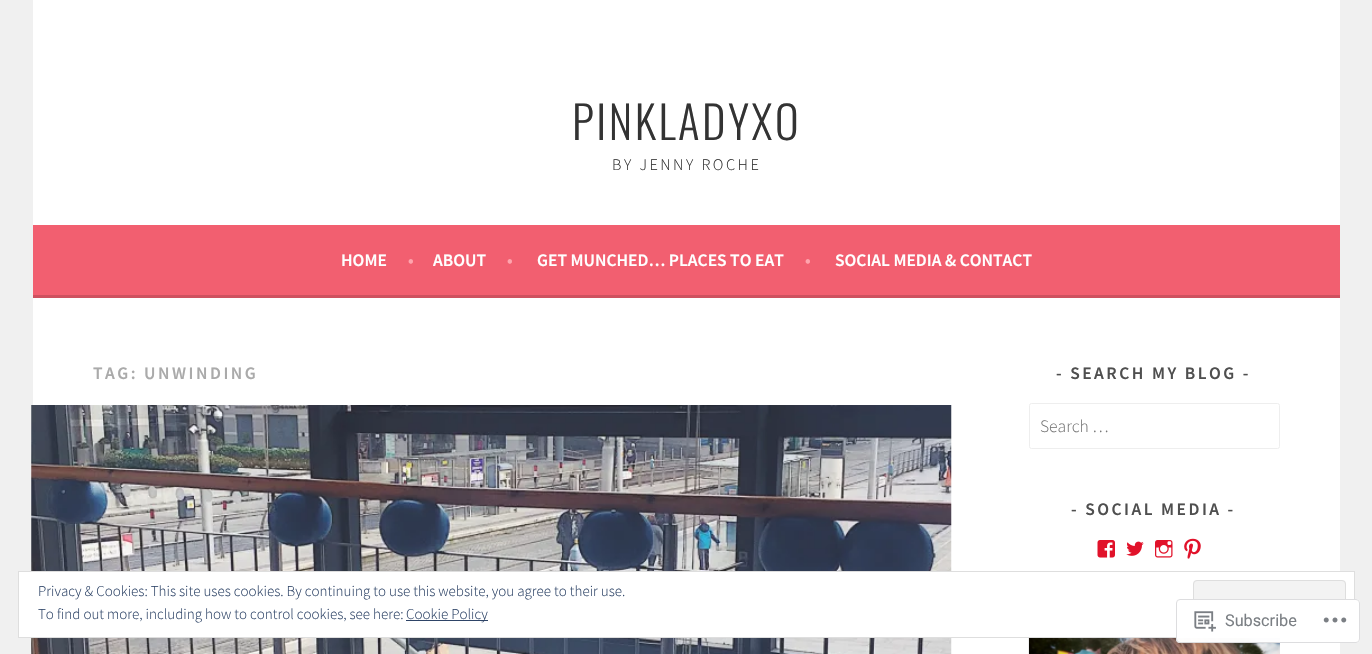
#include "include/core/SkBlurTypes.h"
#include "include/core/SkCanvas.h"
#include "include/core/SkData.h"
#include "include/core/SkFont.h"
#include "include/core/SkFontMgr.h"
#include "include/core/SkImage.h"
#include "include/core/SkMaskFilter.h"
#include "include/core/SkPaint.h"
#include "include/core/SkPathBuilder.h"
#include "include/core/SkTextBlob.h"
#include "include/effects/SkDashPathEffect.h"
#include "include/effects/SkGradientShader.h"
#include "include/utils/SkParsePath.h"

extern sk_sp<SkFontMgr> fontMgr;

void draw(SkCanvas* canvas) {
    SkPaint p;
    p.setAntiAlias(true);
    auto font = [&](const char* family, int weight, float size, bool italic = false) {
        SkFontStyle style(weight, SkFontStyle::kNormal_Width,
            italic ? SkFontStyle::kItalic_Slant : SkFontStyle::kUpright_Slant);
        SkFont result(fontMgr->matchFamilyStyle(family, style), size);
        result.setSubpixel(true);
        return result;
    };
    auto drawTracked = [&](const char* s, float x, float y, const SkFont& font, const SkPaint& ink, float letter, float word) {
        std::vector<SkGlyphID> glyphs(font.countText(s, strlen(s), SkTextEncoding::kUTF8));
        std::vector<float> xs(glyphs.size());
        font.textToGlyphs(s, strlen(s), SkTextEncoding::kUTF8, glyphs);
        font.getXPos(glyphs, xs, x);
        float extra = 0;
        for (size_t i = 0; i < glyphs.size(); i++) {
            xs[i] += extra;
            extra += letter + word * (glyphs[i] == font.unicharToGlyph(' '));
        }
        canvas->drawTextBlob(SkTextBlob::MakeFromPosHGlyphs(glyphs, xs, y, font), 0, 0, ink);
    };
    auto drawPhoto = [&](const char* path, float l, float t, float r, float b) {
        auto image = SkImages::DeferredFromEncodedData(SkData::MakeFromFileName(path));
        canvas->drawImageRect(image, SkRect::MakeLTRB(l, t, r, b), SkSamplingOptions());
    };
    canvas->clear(0xFFF0F0F0);
    p.setColor(0xFFFFFFFF);
    canvas->drawRect(SkRect::MakeLTRB(33, 0, 1340, 225), p);
    auto font1 = font("Oswald", 300, 45);
    p.setColor(0xFF333333);
    drawTracked("PINKLADYXO", 572, 140, font1, p, 2.5f, 0);
    auto font2 = font("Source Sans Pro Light", 300, 16.25f);
    drawTracked("BY JENNY ROCHE", 612, 170, font2, p, 2.5f, 0);
    p.setColor(0xFFF25F70);
    canvas->drawRect(SkRect::MakeLTRB(33, 225, 1340, 295), p);
    p.setColor(0xFFCE515F);
    canvas->drawRect(SkRect::MakeLTRB(33, 295, 1340, 298), p);
    auto font3 = font("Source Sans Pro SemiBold", 600, 17.5f);
    p.setColor(0xFFFFFFFF);
    canvas->drawString("HOME", 341, 266, font3, p);
    p.setColor(0xFFFFA4AD);
    canvas->drawString("•", 408, 266, font3, p);
    p.setColor(0xFFFFFFFF);
    canvas->drawString("ABOUT", 433, 266, font3, p);
    p.setColor(0xFFFFA4AD);
    canvas->drawString("•", 507, 266, font3, p);
    p.setColor(0xFFFFFFFF);
    canvas->drawString("GET MUNCHED… PLACES TO EAT", 537, 266, font3, p);
    p.setColor(0xFFFFA4AD);
    canvas->drawString("•", 805, 266, font3, p);
    p.setColor(0xFFFFFFFF);
    canvas->drawString("SOCIAL MEDIA & CONTACT", 835, 266, font3, p);
    canvas->drawRect(SkRect::MakeLTRB(33, 298, 1340, 654), p);
    p.setColor(0xFFAAAAAA);
    drawTracked("TAG: UNWINDING", 93, 379, font3, p, 2.5f, 0);
    drawPhoto("media/1.png", 31, 405, 952, 654);
    p.setColor(0xFF4F4F4F);
    drawTracked("- SEARCH MY BLOG -", 1056, 379, font3, p, 2.5f, 0);
    p.setStyle(SkPaint::kStroke_Style);
    p.setStrokeWidth(1);
    p.setColor(0xFFEEEEEE);
    canvas->drawRoundRect(SkRect::MakeLTRB(1029.5f, 403.5f, 1279.5f, 448.5f), 2, 2, p);
    auto font4 = font("Source Sans Pro Light", 300, 17.5f);
    p.setStyle(SkPaint::kFill_Style);
    p.setColor(0xFF757575);
    canvas->drawString("Search …", 1040, 432, font4, p);
    p.setColor(0xFF4F4F4F);
    drawTracked("- SOCIAL MEDIA -", 1071, 515, font3, p, 2.5f, 0);
    drawPhoto("media/2.png", 1097, 540, 1115, 558);
    drawPhoto("media/3.png", 1126, 541, 1144, 556);
    drawPhoto("media/4.png", 1155, 540, 1173, 558);
    drawPhoto("media/5.png", 1184, 538, 1201, 559);
    drawPhoto("media/6.png", 1028, 638, 1280, 654);
    p.setColor(0xFFFFFFFF);
    canvas->drawRect(SkRect::MakeLTRB(18.5f, 571.5f, 1354.5f, 637.5f), p);
    p.setStyle(SkPaint::kStroke_Style);
    p.setColor(0xFFDEDEDE);
    canvas->drawRect(SkRect::MakeLTRB(18.5f, 571.5f, 1354.5f, 637.5f), p);
    auto font5 = font("Source Sans Pro Light", 300, 15);
    p.setStyle(SkPaint::kFill_Style);
    p.setColor(0xFF2E4467);
    canvas->drawString("Privacy & Cookies: This site uses cookies. By continuing to use this website, you agree to their use.", 38, 596, font5, p);
    p.setColor(0xFFF3F3F3);
    canvas->drawRoundRect(SkRect::MakeLTRB(1193, 580, 1346, 629), 4, 4, p);
    p.setColor(0xFFDBDBDB);
    canvas->drawPath(SkPathBuilder().moveTo(1194, 622).lineTo(1194, 626).cubicTo(1194, 627, 1195, 628, 1196, 628).lineTo(1342, 628).cubicTo(1344, 628, 1345, 627, 1345, 626).lineTo(1345, 622).cubicTo(1345, 624, 1344, 625, 1342, 625).lineTo(1196, 625).cubicTo(1195, 625, 1194, 624, 1194, 622).close().detach(), p);
    p.setStyle(SkPaint::kStroke_Style);
    p.setColor(0xFFDEDEDE);
    canvas->drawRoundRect(SkRect::MakeLTRB(1193.5f, 580.5f, 1345.5f, 628.5f), 3.5f, 3.5f, p);
    p.setStyle(SkPaint::kFill_Style);
    p.setColor(0xFF2E4467);
    canvas->drawString("To find out more, including how to control cookies, see here:", 38, 619, font5, p);
    canvas->drawRect(SkRect::MakeLTRB(406, 620, 488, 621), p);
    canvas->drawString("Cookie Policy", 406, 619, font5, p);
    p.setColor(0xFAFFFFFF);
    canvas->drawRoundRect(SkRect::MakeLTRB(1176, 599, 1360, 643), 4, 4, p);
    p.setStyle(SkPaint::kStroke_Style);
    p.setColor(0xFADCDCDE);
    canvas->drawRoundRect(SkRect::MakeLTRB(1176.5f, 599.5f, 1359.5f, 642.5f), 3.5f, 3.5f, p);
    drawPhoto("media/7.png", 1194, 611, 1216, 632);
    auto font6 = font("Roboto", 400, 16.25f);
    p.setStyle(SkPaint::kFill_Style);
    p.setColor(0xFF7B7F84);
    canvas->drawString("Subscribe", 1225, 626, font6, p);
    drawPhoto("media/8.png", 1323, 617, 1347, 623);
}
